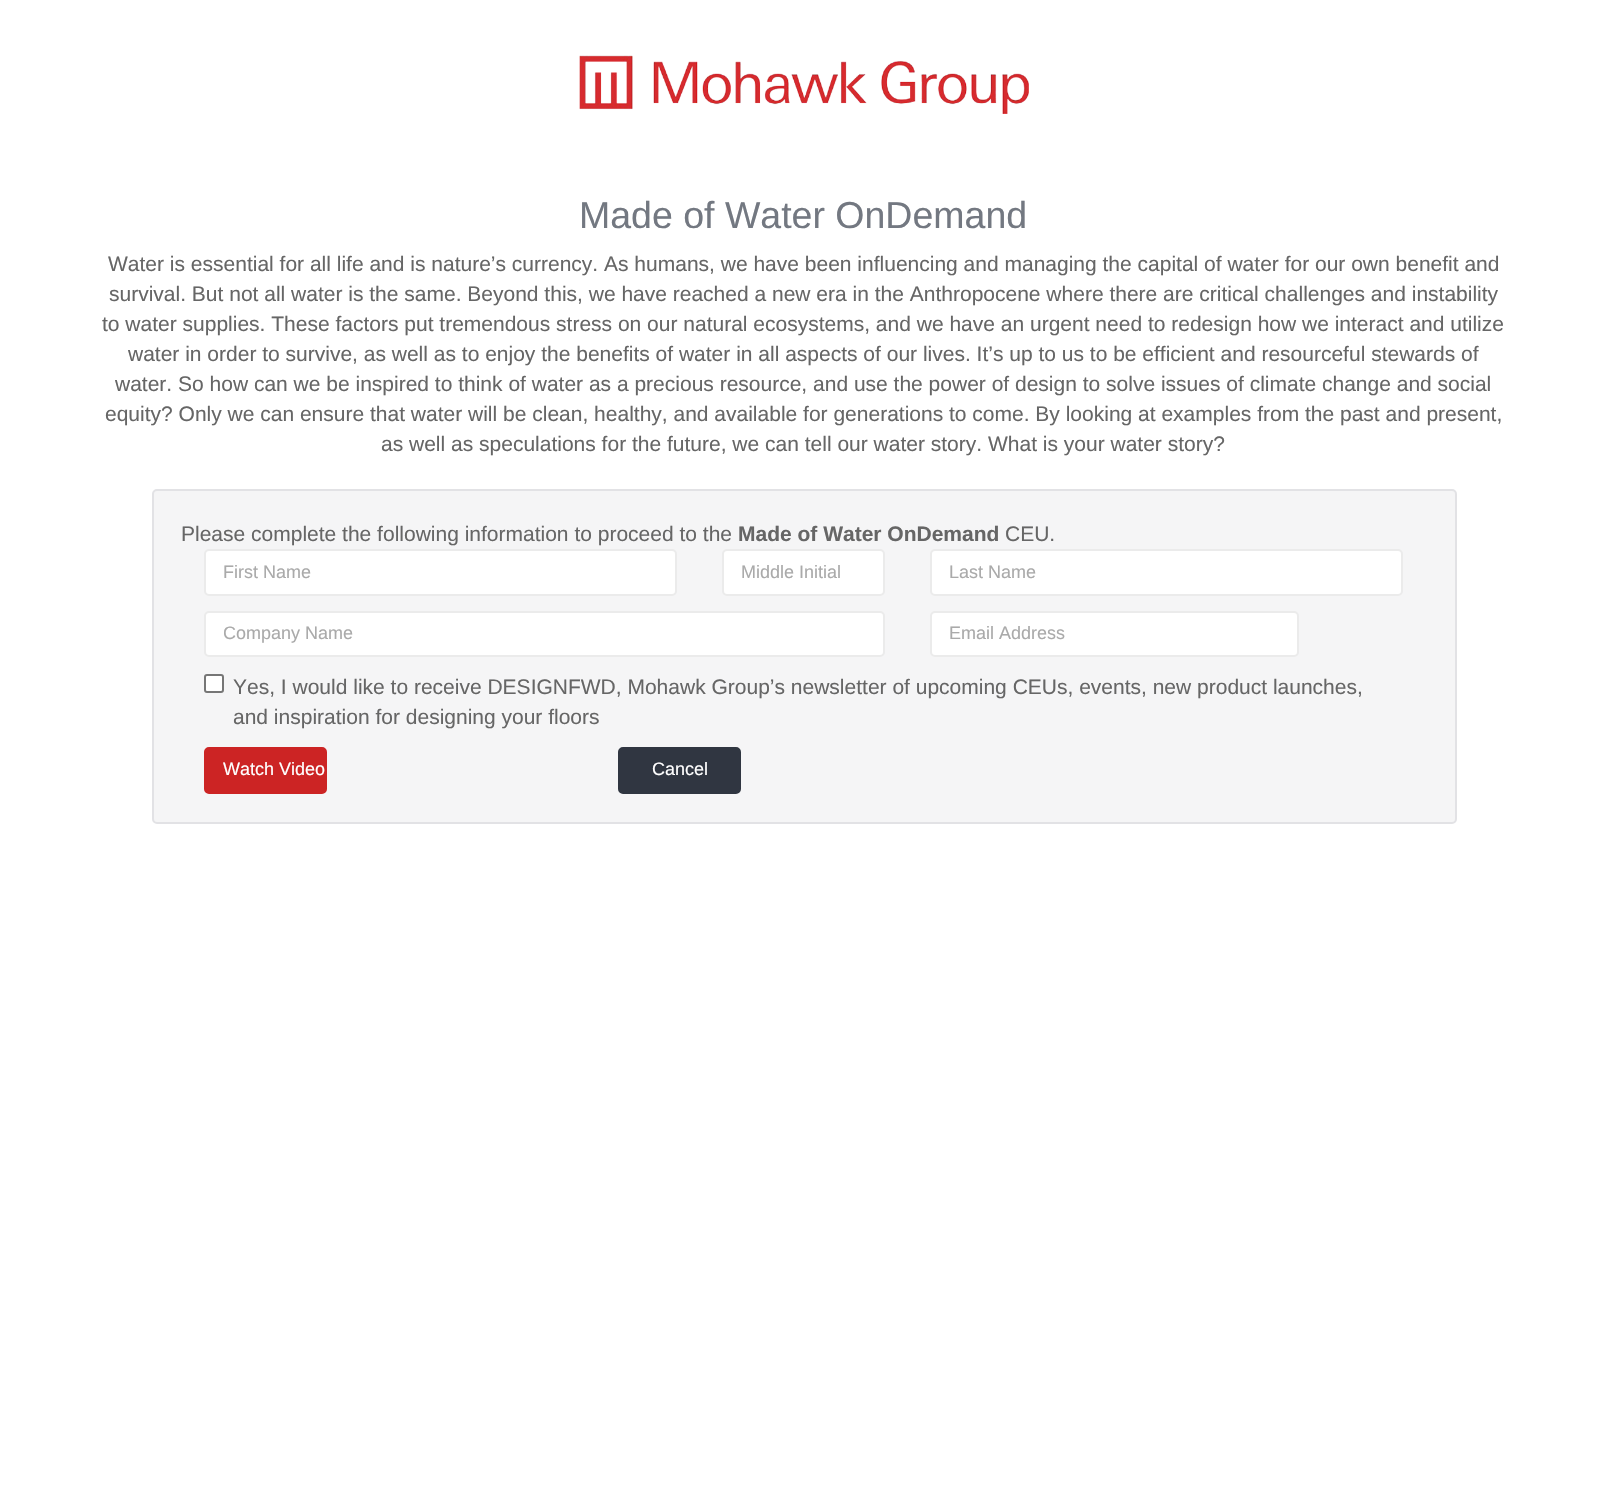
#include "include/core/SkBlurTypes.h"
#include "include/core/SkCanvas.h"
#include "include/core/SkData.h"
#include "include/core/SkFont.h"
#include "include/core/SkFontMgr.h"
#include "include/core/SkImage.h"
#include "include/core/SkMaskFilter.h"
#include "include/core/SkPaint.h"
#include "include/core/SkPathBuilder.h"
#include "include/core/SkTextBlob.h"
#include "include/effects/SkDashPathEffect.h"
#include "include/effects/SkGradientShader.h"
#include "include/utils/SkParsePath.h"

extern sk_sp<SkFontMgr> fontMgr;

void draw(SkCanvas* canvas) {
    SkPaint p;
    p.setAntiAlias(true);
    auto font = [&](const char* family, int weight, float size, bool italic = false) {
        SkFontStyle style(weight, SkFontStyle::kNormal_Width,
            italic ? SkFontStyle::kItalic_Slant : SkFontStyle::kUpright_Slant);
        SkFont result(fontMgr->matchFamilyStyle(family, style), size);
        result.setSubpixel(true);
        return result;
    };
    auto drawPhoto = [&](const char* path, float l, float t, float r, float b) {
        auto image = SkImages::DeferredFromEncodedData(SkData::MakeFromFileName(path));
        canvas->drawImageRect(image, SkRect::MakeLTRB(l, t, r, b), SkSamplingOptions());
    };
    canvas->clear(0xFFFFFFFF);
    drawPhoto("media/1.png", 579, 55, 1029, 114);
    auto font1 = font("Liberation Sans", 400, 37.5f);
    p.setColor(0xFF737881);
    canvas->drawString("Made of Water OnDemand", 579, 228, font1, p);
    auto font2 = font("Liberation Sans", 400, 21);
    p.setColor(0xFF666666);
    {
        const struct { const char* s; float x, y; } items[] = {
            {"Water is essential for all life and is nature’s currency. As humans, we have been influencing and managing the capital of water for our own benefit and", 108, 271},
            {"survival. But not all water is the same. Beyond this, we have reached a new era in the Anthropocene where there are critical challenges and instability", 109, 301},
            {"to water supplies. These factors put tremendous stress on our natural ecosystems, and we have an urgent need to redesign how we interact and utilize", 102, 331},
            {"water in order to survive, as well as to enjoy the benefits of water in all aspects of our lives. It’s up to us to be efficient and resourceful stewards of", 128, 361},
            {"water. So how can we be inspired to think of water as a precious resource, and use the power of design to solve issues of climate change and social", 115, 391},
            {"equity? Only we can ensure that water will be clean, healthy, and available for generations to come. By looking at examples from the past and present,", 105, 421},
            {"as well as speculations for the future, we can tell our water story. What is your water story?", 381, 451},
        };
        for (auto [s, x, y] : items) {
            canvas->drawString(s, x, y, font2, p);
        }
    }
    p.setColor(0xFFF5F5F6);
    canvas->drawRoundRect(SkRect::MakeLTRB(153, 490, 1456, 823), 4, 4, p);
    p.setStyle(SkPaint::kStroke_Style);
    p.setStrokeWidth(2);
    p.setColor(0xFFE2E2E5);
    canvas->drawRoundRect(SkRect::MakeLTRB(153, 490, 1456, 823), 4, 4, p);
    p.setStyle(SkPaint::kFill_Style);
    p.setColor(0xFF666666);
    canvas->drawString("Please complete the following information to proceed to the", 181, 541, font2, p);
    auto font3 = font("Liberation Sans", 700, 21);
    canvas->drawString("Made of Water OnDemand", 738, 541, font3, p);
    canvas->drawString("CEU.", 1005, 541, font2, p);
    p.setColor(0xFFFFFFFF);
    canvas->drawRoundRect(SkRect::MakeLTRB(205, 550, 676, 595), 4, 4, p);
    p.setStyle(SkPaint::kStroke_Style);
    p.setColor(0xFFEBEBEB);
    canvas->drawRoundRect(SkRect::MakeLTRB(205, 550, 676, 595), 4, 4, p);
    auto font4 = font("Liberation Sans", 400, 18);
    p.setStyle(SkPaint::kFill_Style);
    p.setColor(0xFFAAAAAA);
    canvas->drawString("First Name", 223, 578, font4, p);
    p.setColor(0xFFFFFFFF);
    canvas->drawRoundRect(SkRect::MakeLTRB(723, 550, 884, 595), 4, 4, p);
    p.setStyle(SkPaint::kStroke_Style);
    p.setColor(0xFFEBEBEB);
    canvas->drawRoundRect(SkRect::MakeLTRB(723, 550, 884, 595), 4, 4, p);
    p.setStyle(SkPaint::kFill_Style);
    p.setColor(0xFFAAAAAA);
    canvas->drawString("Middle Initial", 741, 578, font4, p);
    p.setColor(0xFFFFFFFF);
    canvas->drawRoundRect(SkRect::MakeLTRB(931, 550, 1402, 595), 4, 4, p);
    p.setStyle(SkPaint::kStroke_Style);
    p.setColor(0xFFEBEBEB);
    canvas->drawRoundRect(SkRect::MakeLTRB(931, 550, 1402, 595), 4, 4, p);
    p.setStyle(SkPaint::kFill_Style);
    p.setColor(0xFFAAAAAA);
    canvas->drawString("Last Name", 949, 578, font4, p);
    p.setColor(0xFFFFFFFF);
    canvas->drawRoundRect(SkRect::MakeLTRB(205, 612, 884, 656), 4, 4, p);
    p.setStyle(SkPaint::kStroke_Style);
    p.setColor(0xFFEBEBEB);
    canvas->drawRoundRect(SkRect::MakeLTRB(205, 612, 884, 656), 4, 4, p);
    canvas->save();
    canvas->clipRect(SkRect::MakeLTRB(224, 623, 866, 644));
    p.setStyle(SkPaint::kFill_Style);
    p.setColor(0xFFAAAAAA);
    canvas->drawString("Company Name", 223, 639, font4, p);
    canvas->restore();
    p.setColor(0xFFFFFFFF);
    canvas->drawRoundRect(SkRect::MakeLTRB(931, 612, 1298, 656), 4, 4, p);
    p.setStyle(SkPaint::kStroke_Style);
    p.setColor(0xFFEBEBEB);
    canvas->drawRoundRect(SkRect::MakeLTRB(931, 612, 1298, 656), 4, 4, p);
    p.setStyle(SkPaint::kFill_Style);
    p.setColor(0xFFAAAAAA);
    canvas->drawString("Email Address", 949, 639, font4, p);
    p.setColor(0xFFFFFFFF);
    canvas->drawRoundRect(SkRect::MakeLTRB(205, 675, 223, 692), 2, 2, p);
    p.setStyle(SkPaint::kStroke_Style);
    p.setColor(0xFF767676);
    canvas->drawRoundRect(SkRect::MakeLTRB(205, 675, 223, 692), 2, 2, p);
    p.setStyle(SkPaint::kFill_Style);
    p.setColor(0xFF666666);
    canvas->drawString("Yes, I would like to receive DESIGNFWD, Mohawk Group’s newsletter of upcoming CEUs, events, new product launches,", 233, 694, font2, p);
    canvas->drawString("and inspiration for designing your floors", 233, 724, font2, p);
    p.setColor(0xFFCC2424);
    canvas->drawRoundRect(SkRect::MakeLTRB(205, 748, 326, 793), 4, 4, p);
    p.setStyle(SkPaint::kStroke_Style);
    canvas->drawRoundRect(SkRect::MakeLTRB(205, 748, 326, 793), 4, 4, p);
    p.setStyle(SkPaint::kFill_Style);
    p.setColor(0xFFFFFFFF);
    canvas->drawString("Watch Video", 223, 775, font4, p);
    p.setColor(0xFF303641);
    canvas->drawRoundRect(SkRect::MakeLTRB(619, 748, 740, 793), 4, 4, p);
    p.setStyle(SkPaint::kStroke_Style);
    canvas->drawRoundRect(SkRect::MakeLTRB(619, 748, 740, 793), 4, 4, p);
    p.setStyle(SkPaint::kFill_Style);
    p.setColor(0xFFFFFFFF);
    canvas->drawString("Cancel", 652, 775, font4, p);
}
